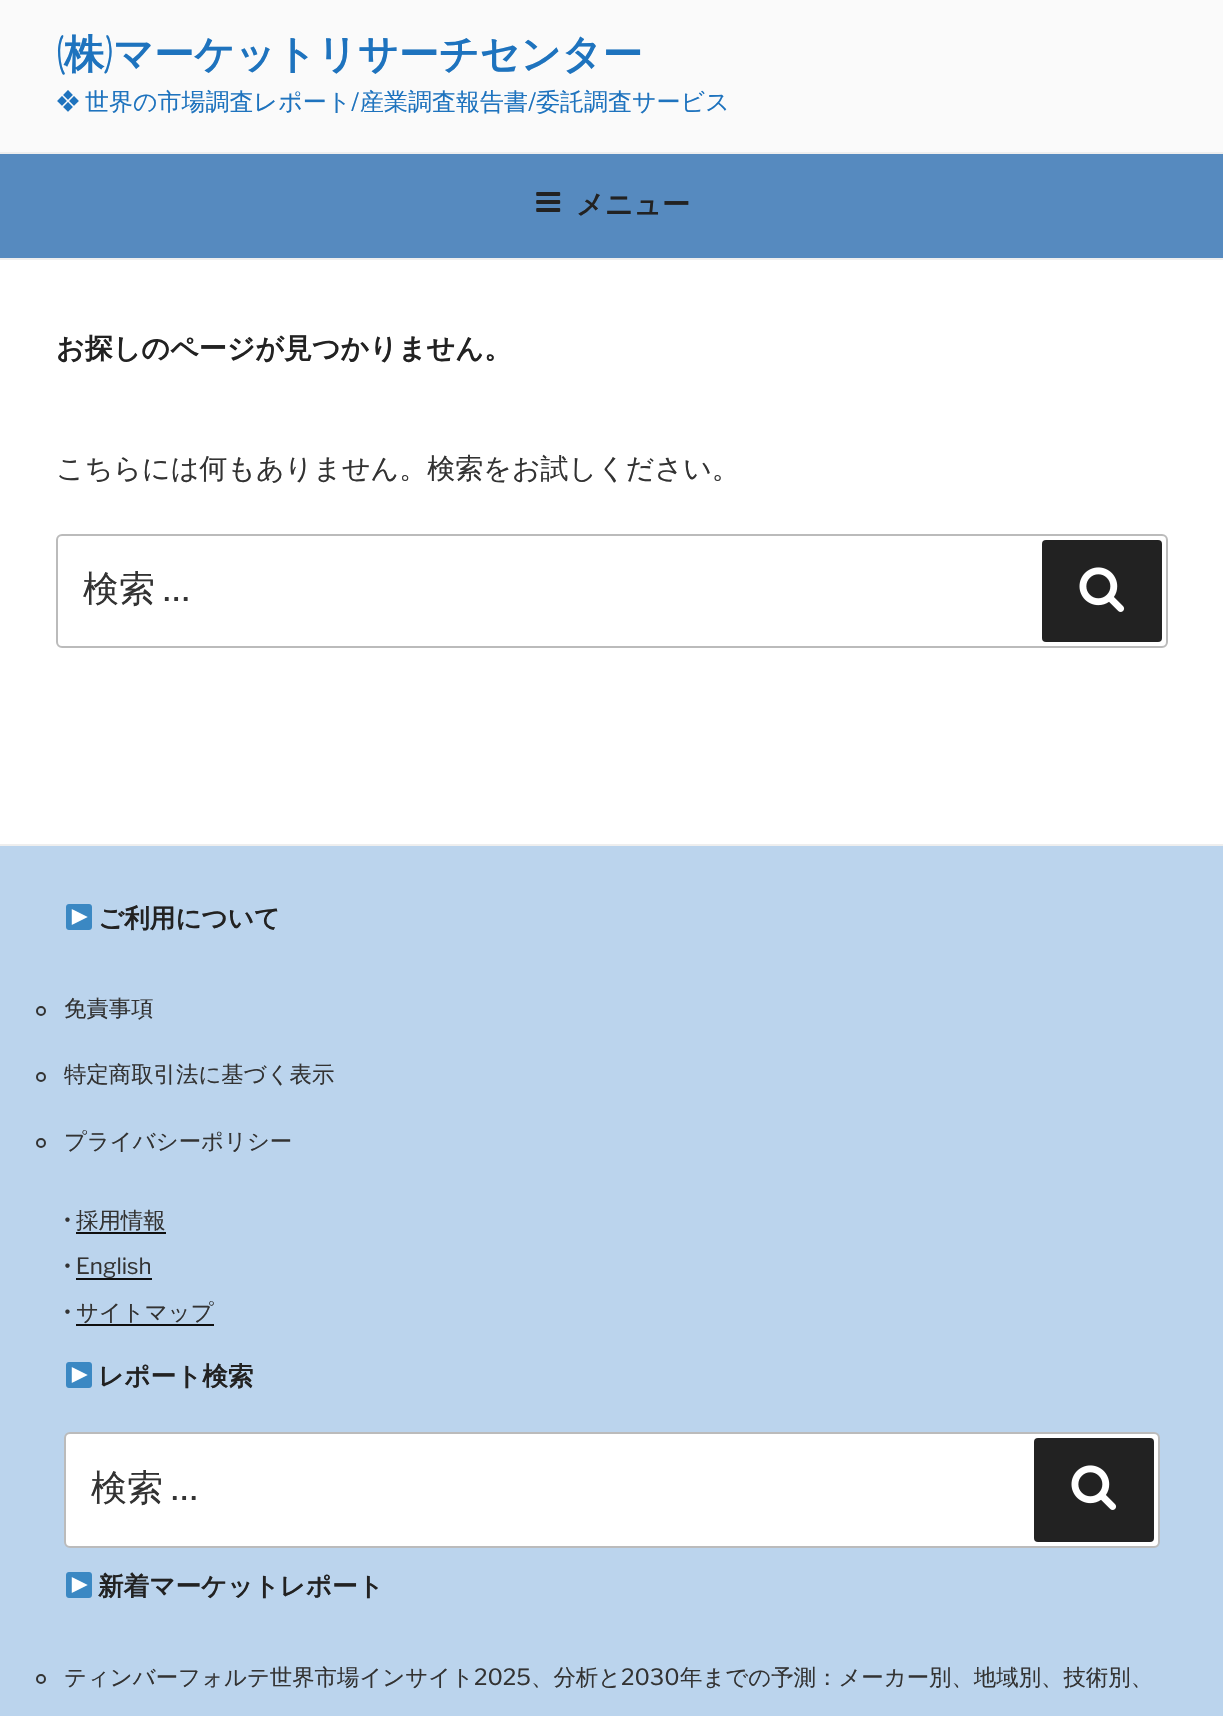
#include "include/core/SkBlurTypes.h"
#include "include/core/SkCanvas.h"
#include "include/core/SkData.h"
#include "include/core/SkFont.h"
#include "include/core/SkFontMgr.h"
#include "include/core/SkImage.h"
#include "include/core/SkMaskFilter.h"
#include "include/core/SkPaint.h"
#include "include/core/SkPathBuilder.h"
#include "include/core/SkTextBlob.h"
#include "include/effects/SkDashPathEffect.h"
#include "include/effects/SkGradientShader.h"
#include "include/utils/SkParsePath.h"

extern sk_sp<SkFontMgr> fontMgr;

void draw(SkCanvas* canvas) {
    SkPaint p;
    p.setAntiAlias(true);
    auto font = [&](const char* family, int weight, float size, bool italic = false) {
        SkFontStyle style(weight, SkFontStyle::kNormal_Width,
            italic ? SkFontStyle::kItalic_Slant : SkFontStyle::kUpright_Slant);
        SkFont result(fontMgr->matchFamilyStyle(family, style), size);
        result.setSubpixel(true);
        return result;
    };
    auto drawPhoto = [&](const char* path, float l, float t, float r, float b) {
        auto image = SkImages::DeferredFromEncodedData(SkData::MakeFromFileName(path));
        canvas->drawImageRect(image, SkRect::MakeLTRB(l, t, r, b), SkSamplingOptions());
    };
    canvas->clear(0xFFFFFFFF);
    p.setColor(0xFFFAFAFA);
    canvas->drawRect(SkRect::MakeLTRB(0, 0, 1223, 152), p);
    auto font1 = font("Amatic SC", 700, 40);
    p.setColor(0xFF1E73BE);
    canvas->drawString("(", 56, 68, font1, p);
    auto font2 = font("WenQuanYi Zen Hei", 700, 40);
    canvas->drawString("株", 64, 68, font2, p);
    canvas->drawString(")", 104, 68, font1, p);
    canvas->drawString("マーケットリサーチセンター", 113, 68, font2, p);
    auto font3 = font("IPAPGothic", 400, 24);
    canvas->drawString("❖", 56, 110, font3, p);
    auto font4 = font("WenQuanYi Zen Hei", 500, 24);
    canvas->drawString("世界の市場調査レポート", 85, 110, font4, p);
    auto font5 = font("Libre Franklin", 400, 24);
    canvas->drawString("/", 351, 110, font5, p);
    canvas->drawString("産業調査報告書", 360, 110, font4, p);
    canvas->drawString("/", 528, 110, font5, p);
    canvas->drawString("委託調査サービス", 536, 110, font4, p);
    {
        const struct { float l, t, r, b; SkColor color; } items[] = {
            {0, 154, 1223, 258, 0xFF568ABF},
            {0, 152, 1223, 154, 0xFFEEEEEE},
            {0, 258, 1223, 260, 0xFFEEEEEE},
        };
        for (auto [l, t, r, b, color] : items) {
            p.setColor(color);
            canvas->drawRect(SkRect::MakeLTRB(l, t, r, b), p);
        }
    }
    drawPhoto("media/1.png", 536, 192, 561, 212);
    auto font6 = font("WenQuanYi Zen Hei", 700, 28);
    p.setColor(0xFF222222);
    canvas->drawString("メニュー", 576, 214, font6, p);
    canvas->drawString("お探しのページが見つかりません。", 56, 358, font6, p);
    auto font7 = font("WenQuanYi Zen Hei", 500, 28);
    p.setColor(0xFF333333);
    canvas->drawString("こちらには何もありません。検索をお試しください。", 56, 478, font7, p);
    p.setStyle(SkPaint::kStroke_Style);
    p.setStrokeWidth(2);
    p.setColor(0xFFBBBBBB);
    canvas->drawRoundRect(SkRect::MakeLTRB(57, 535, 1167, 647), 5, 5, p);
    auto font8 = font("WenQuanYi Zen Hei", 500, 36);
    p.setStyle(SkPaint::kFill_Style);
    p.setColor(0xFF333333);
    canvas->drawString("検索", 83, 601, font8, p);
    auto font9 = font("Libre Franklin", 400, 36);
    canvas->drawString("…", 163, 601, font9, p);
    p.setColor(0xFF222222);
    canvas->drawRoundRect(SkRect::MakeLTRB(1042, 540, 1162, 642), 4, 4, p);
    drawPhoto("media/2.png", 1079, 567, 1125, 612);
    p.setColor(0xFFBBD4ED);
    canvas->drawRect(SkRect::MakeLTRB(0, 846, 1223, 1716), p);
    p.setColor(0xFFEEEEEE);
    canvas->drawRect(SkRect::MakeLTRB(0, 844, 1223, 846), p);
    drawPhoto("media/3.png", 66, 904, 92, 930);
    auto font10 = font("WenQuanYi Zen Hei", 700, 25.6f);
    p.setColor(0xFF222222);
    canvas->drawString("ご利用について", 98, 927, font10, p);
    p.setStyle(SkPaint::kStroke_Style);
    p.setColor(0xFF333333);
    canvas->drawCircle(41, 1011, 4, p);
    auto font11 = font("WenQuanYi Zen Hei", 500, 22.4f);
    p.setStyle(SkPaint::kFill_Style);
    canvas->drawString("免責事項", 64, 1016, font11, p);
    p.setStyle(SkPaint::kStroke_Style);
    canvas->drawCircle(41, 1077, 4, p);
    p.setStyle(SkPaint::kFill_Style);
    canvas->drawString("特定商取引法に基づく表示", 64, 1082, font11, p);
    p.setStyle(SkPaint::kStroke_Style);
    canvas->drawCircle(41, 1143, 4, p);
    p.setStyle(SkPaint::kFill_Style);
    canvas->drawString("プライバシーポリシー", 64, 1149, font11, p);
    auto font12 = font("Libre Franklin", 400, 22.4f);
    canvas->drawString("•", 64, 1228, font12, p);
    canvas->drawString("採用情報", 76, 1228, font11, p);
    p.setColor(0xFF0F0F0F);
    canvas->drawRect(SkRect::MakeLTRB(76, 1232, 166, 1234), p);
    p.setColor(0xFF333333);
    canvas->drawString("• English", 64, 1274, font12, p);
    p.setColor(0xFF0F0F0F);
    canvas->drawRect(SkRect::MakeLTRB(76, 1278, 152, 1280), p);
    p.setColor(0xFF333333);
    canvas->drawString("•", 64, 1320, font12, p);
    canvas->drawString("サイトマップ", 76, 1320, font11, p);
    p.setColor(0xFF0F0F0F);
    canvas->drawRect(SkRect::MakeLTRB(76, 1324, 214, 1326), p);
    drawPhoto("media/3.png", 66, 1362, 92, 1388);
    p.setColor(0xFF222222);
    canvas->drawString("レポート検索", 98, 1385, font10, p);
    p.setColor(0xFFFFFFFF);
    canvas->drawRoundRect(SkRect::MakeLTRB(65, 1433, 1159, 1547), 5, 5, p);
    p.setStyle(SkPaint::kStroke_Style);
    p.setColor(0xFFBBBBBB);
    canvas->drawRoundRect(SkRect::MakeLTRB(65, 1433, 1159, 1547), 5, 5, p);
    p.setStyle(SkPaint::kFill_Style);
    p.setColor(0xFF333333);
    canvas->drawString("検索", 91, 1500, font8, p);
    canvas->drawString("…", 171, 1500, font9, p);
    p.setColor(0xFF222222);
    canvas->drawRoundRect(SkRect::MakeLTRB(1034, 1438, 1154, 1542), 4, 4, p);
    drawPhoto("media/2.png", 1071, 1465, 1117, 1510);
    drawPhoto("media/3.png", 66, 1572, 92, 1598);
    canvas->drawString("新着マーケットレポート", 98, 1595, font10, p);
    p.setStyle(SkPaint::kStroke_Style);
    p.setColor(0xFF333333);
    canvas->drawCircle(41, 1679, 4, p);
    p.setStyle(SkPaint::kFill_Style);
    canvas->drawString("ティンバーフォルテ世界市場インサイト", 64, 1685, font11, p);
    canvas->drawString("2025", 474, 1685, font12, p);
    canvas->drawString("、分析と", 531, 1685, font11, p);
    canvas->drawString("2030", 621, 1685, font12, p);
    canvas->drawString("年までの予測：メーカー別、地域別、技術別、", 680, 1685, font11, p);
}
